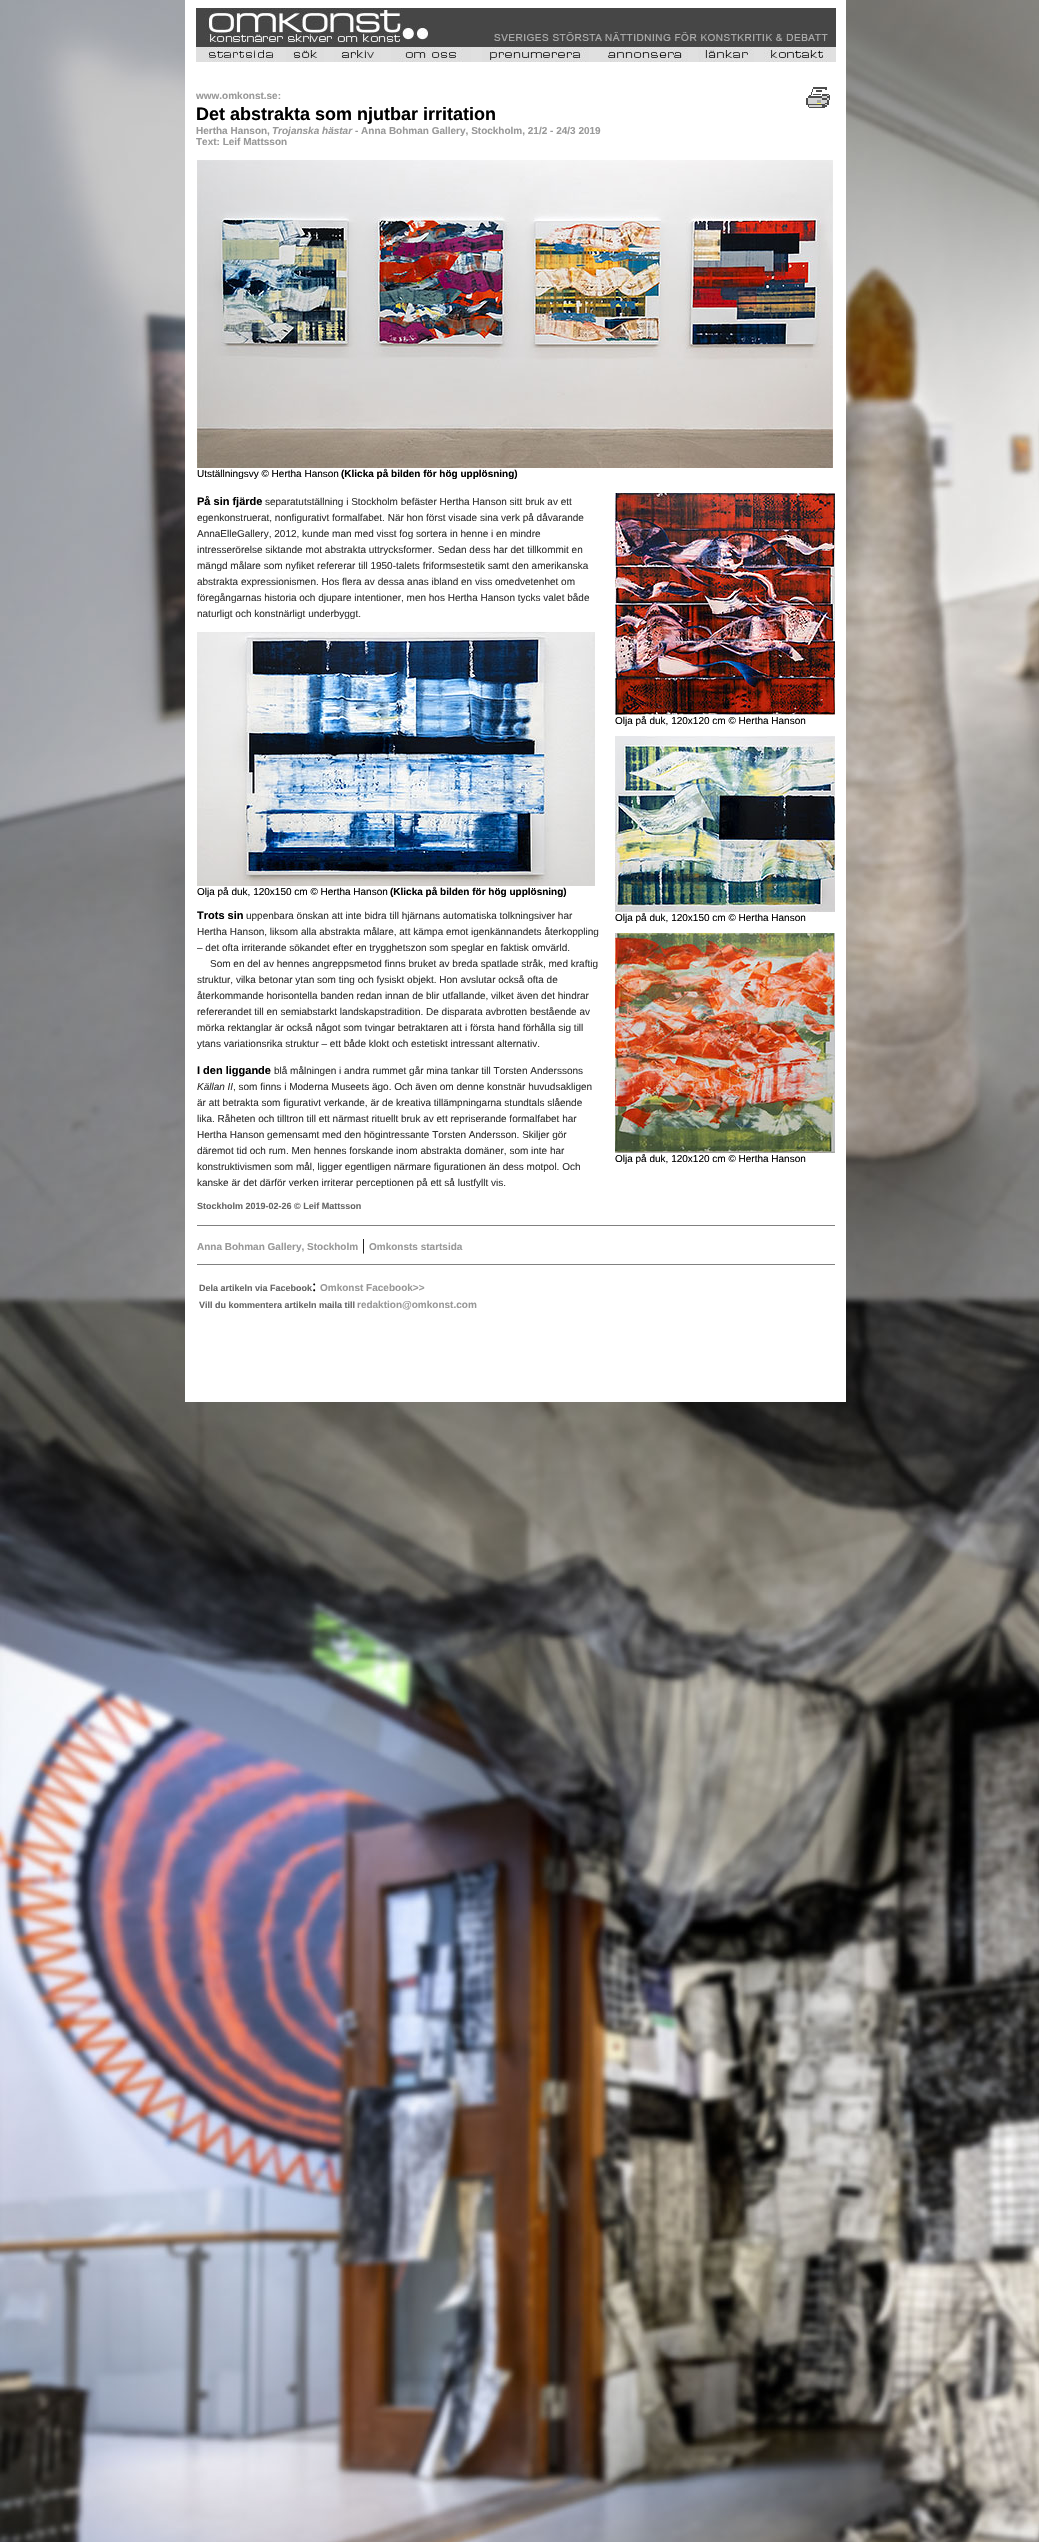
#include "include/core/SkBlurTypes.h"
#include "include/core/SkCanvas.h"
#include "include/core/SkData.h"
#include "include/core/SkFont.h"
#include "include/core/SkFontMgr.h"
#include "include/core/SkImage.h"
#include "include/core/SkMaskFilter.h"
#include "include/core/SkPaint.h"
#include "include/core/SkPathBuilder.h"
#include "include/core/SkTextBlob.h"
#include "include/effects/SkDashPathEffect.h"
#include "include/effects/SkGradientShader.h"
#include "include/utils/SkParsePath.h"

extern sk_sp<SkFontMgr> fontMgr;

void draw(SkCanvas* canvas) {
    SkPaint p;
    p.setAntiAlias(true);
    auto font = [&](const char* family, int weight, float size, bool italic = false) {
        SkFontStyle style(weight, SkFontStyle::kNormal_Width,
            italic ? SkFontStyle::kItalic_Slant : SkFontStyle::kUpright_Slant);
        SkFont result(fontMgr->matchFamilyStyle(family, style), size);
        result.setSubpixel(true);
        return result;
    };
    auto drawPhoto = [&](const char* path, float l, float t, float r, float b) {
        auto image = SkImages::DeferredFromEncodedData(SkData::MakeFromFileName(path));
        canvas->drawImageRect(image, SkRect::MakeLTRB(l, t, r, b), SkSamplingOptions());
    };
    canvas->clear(0xFFFFFFFF);
    drawPhoto("media/1.png", 0, 0, 1039, 2542);
    p.setColor(0xFFFFFFFF);
    canvas->drawRect(SkRect::MakeLTRB(185, 0, 846, 1402), p);
    drawPhoto("media/2.png", 196, 8, 836, 44);
    p.setColor(0xFF464646);
    canvas->drawRect(SkRect::MakeLTRB(196, 44, 836, 47), p);
    p.setColor(0xFFE0E0E0);
    canvas->drawRect(SkRect::MakeLTRB(196, 47, 198, 62), p);
    drawPhoto("media/3.png", 198, 47, 276, 62);
    canvas->drawRect(SkRect::MakeLTRB(276, 47, 286, 62), p);
    drawPhoto("media/4.png", 286, 47, 324, 62);
    canvas->drawRect(SkRect::MakeLTRB(324, 47, 334, 62), p);
    drawPhoto("media/5.png", 334, 47, 381, 62);
    canvas->drawRect(SkRect::MakeLTRB(381, 47, 391, 62), p);
    drawPhoto("media/6.png", 391, 47, 471, 62);
    canvas->drawRect(SkRect::MakeLTRB(471, 47, 482, 62), p);
    drawPhoto("media/7.png", 482, 47, 589, 62);
    canvas->drawRect(SkRect::MakeLTRB(589, 47, 600, 62), p);
    drawPhoto("media/8.png", 600, 47, 688, 62);
    canvas->drawRect(SkRect::MakeLTRB(688, 47, 698, 62), p);
    drawPhoto("media/9.png", 698, 47, 754, 62);
    canvas->drawRect(SkRect::MakeLTRB(754, 47, 764, 62), p);
    drawPhoto("media/10.png", 764, 47, 831, 62);
    canvas->drawRect(SkRect::MakeLTRB(831, 47, 836, 62), p);
    auto font1 = font("Liberation Sans", 700, 10);
    p.setColor(0xFF999999);
    canvas->drawString("www.omkonst.se:", 196, 99, font1, p);
    auto font2 = font("Liberation Sans", 700, 18);
    p.setColor(0xFF000000);
    canvas->drawString("Det abstrakta som njutbar irritation", 196, 120, font2, p);
    p.setColor(0xFF999999);
    canvas->drawString("Hertha Hanson,", 196, 134, font1, p);
    auto font3 = font("Liberation Sans", 700, 10, true);
    canvas->drawString("Trojanska hästar", 272, 134, font3, p);
    canvas->drawString("- Anna Bohman Gallery, Stockholm, 21/2 - 24/3 2019", 355, 134, font1, p);
    canvas->drawString("Text: Leif Mattsson", 196, 145, font1, p);
    drawPhoto("media/11.png", 806, 87, 830, 108);
    drawPhoto("media/12.png", 197, 160, 833, 468);
    auto font4 = font("Liberation Sans", 400, 10);
    p.setColor(0xFF000000);
    canvas->drawString("Utställningsvy © Hertha Hanson", 197, 477, font4, p);
    canvas->drawString("(Klicka på bilden för hög upplösning)", 341, 477, font1, p);
    auto font5 = font("Liberation Sans", 700, 11);
    canvas->drawString("På sin fjärde", 197, 505, font5, p);
    p.setColor(0xFF333333);
    {
        const struct { const char* s; float x, y; } items[] = {
            {"separatutställning i Stockholm befäster Hertha Hanson sitt bruk av ett", 265, 505},
            {"egenkonstruerat, nonfigurativt formalfabet. När hon först visade sina verk på dåvarande", 197, 521},
            {"AnnaElleGallery, 2012, kunde man med visst fog sortera in henne i en mindre", 197, 537},
            {"intresserörelse siktande mot abstrakta uttrycksformer. Sedan dess har det tillkommit en", 197, 553},
            {"mängd målare som nyfiket refererar till 1950-talets friformsestetik samt den amerikanska", 197, 569},
            {"abstrakta expressionismen. Hos flera av dessa anas ibland en viss omedvetenhet om", 197, 585},
            {"föregångarnas historia och djupare intentioner, men hos Hertha Hanson tycks valet både", 197, 601},
            {"naturligt och konstnärligt underbyggt.", 197, 617},
        };
        for (auto [s, x, y] : items) {
            canvas->drawString(s, x, y, font4, p);
        }
    }
    drawPhoto("media/13.png", 197, 632, 595, 886);
    p.setColor(0xFF000000);
    canvas->drawString("Olja på duk, 120x150 cm © Hertha Hanson", 197, 895, font4, p);
    canvas->drawString("(Klicka på bilden för hög upplösning)", 390, 895, font1, p);
    canvas->drawString("Trots sin", 197, 919, font5, p);
    p.setColor(0xFF333333);
    {
        const struct { const char* s; float x, y; } items[] = {
            {"uppenbara önskan att inte bidra till hjärnans automatiska tolkningsiver har", 246, 919},
            {"Hertha Hanson, liksom alla abstrakta målare, att kämpa emot igenkännandets återkoppling", 197, 935},
            {"– det ofta irriterande sökandet efter en trygghetszon som speglar en faktisk omvärld.", 197, 951},
            {"Som en del av hennes angreppsmetod finns bruket av breda spatlade stråk, med kraftig", 210, 967},
            {"struktur, vilka betonar ytan som ting och fysiskt objekt. Hon avslutar också ofta de", 197, 983},
            {"återkommande horisontella banden redan innan de blir utfallande, vilket även det hindrar", 197, 999},
            {"refererandet till en semiabstarkt landskapstradition. De disparata avbrotten bestående av", 197, 1015},
            {"mörka rektanglar är också något som tvingar betraktaren att i första hand förhålla sig till", 197, 1031},
            {"ytans variationsrika struktur – ett både klokt och estetiskt intressant alternativ.", 197, 1047},
        };
        for (auto [s, x, y] : items) {
            canvas->drawString(s, x, y, font4, p);
        }
    }
    p.setColor(0xFF000000);
    canvas->drawString("I den liggande", 197, 1074, font5, p);
    p.setColor(0xFF333333);
    canvas->drawString("blå målningen i andra rummet går mina tankar till Torsten Anderssons", 274, 1074, font4, p);
    auto font6 = font("Liberation Sans", 400, 10, true);
    canvas->drawString("Källan II", 197, 1090, font6, p);
    {
        const struct { const char* s; float x, y; } items[] = {
            {", som finns i Moderna Museets ägo. Och även om denne konstnär huvudsakligen", 233, 1090},
            {"är att betrakta som figurativt verkande, är de kreativa tillämpningarna stundtals slående", 197, 1106},
            {"lika. Råheten och tilltron till ett närmast rituellt bruk av ett repriserande formalfabet har", 197, 1122},
            {"Hertha Hanson gemensamt med den högintressante Torsten Andersson. Skiljer gör", 197, 1138},
            {"däremot tid och rum. Men hennes forskande inom abstrakta domäner, som inte har", 197, 1154},
            {"konstruktivismen som mål, ligger egentligen närmare figurationen än dess motpol. Och", 197, 1170},
            {"kanske är det därför verken irriterar perceptionen på ett så lustfyllt vis.", 197, 1186},
        };
        for (auto [s, x, y] : items) {
            canvas->drawString(s, x, y, font4, p);
        }
    }
    auto font7 = font("Liberation Sans", 700, 9);
    p.setColor(0xFF666666);
    canvas->drawString("Stockholm 2019-02-26 © Leif Mattsson", 197, 1209, font7, p);
    drawPhoto("media/14.png", 615, 493, 835, 715);
    p.setColor(0xFF000000);
    canvas->drawString("Olja på duk, 120x120 cm © Hertha Hanson", 615, 724, font4, p);
    drawPhoto("media/15.png", 615, 736, 835, 912);
    canvas->drawString("Olja på duk, 120x150 cm © Hertha Hanson", 615, 921, font4, p);
    drawPhoto("media/16.png", 615, 933, 835, 1153);
    canvas->drawString("Olja på duk, 120x120 cm © Hertha Hanson", 615, 1162, font4, p);
    p.setColor(0xFF808080);
    canvas->drawRect(SkRect::MakeLTRB(197, 1225, 835, 1226), p);
    p.setColor(0xFF999999);
    canvas->drawString("Anna Bohman Gallery, Stockholm", 197, 1250, font1, p);
    auto font8 = font("Liberation Serif", 400, 16);
    p.setColor(0xFF000000);
    canvas->drawString("|", 362, 1250, font8, p);
    p.setColor(0xFF999999);
    canvas->drawString("Omkonsts startsida", 369, 1250, font1, p);
    p.setColor(0xFF808080);
    canvas->drawRect(SkRect::MakeLTRB(197, 1264, 835, 1265), p);
    p.setColor(0xFF666666);
    canvas->drawString("Dela artikeln via Facebook", 199, 1291, font7, p);
    p.setColor(0xFF000000);
    canvas->drawString(":", 312, 1291, font8, p);
    p.setColor(0xFF999999);
    canvas->drawString("Omkonst Facebook>>", 320, 1291, font1, p);
    p.setColor(0xFF666666);
    canvas->drawString("Vill du kommentera artikeln maila till", 199, 1308, font7, p);
    p.setColor(0xFF999999);
    canvas->drawString("redaktion@omkonst.com", 357, 1308, font1, p);
}
